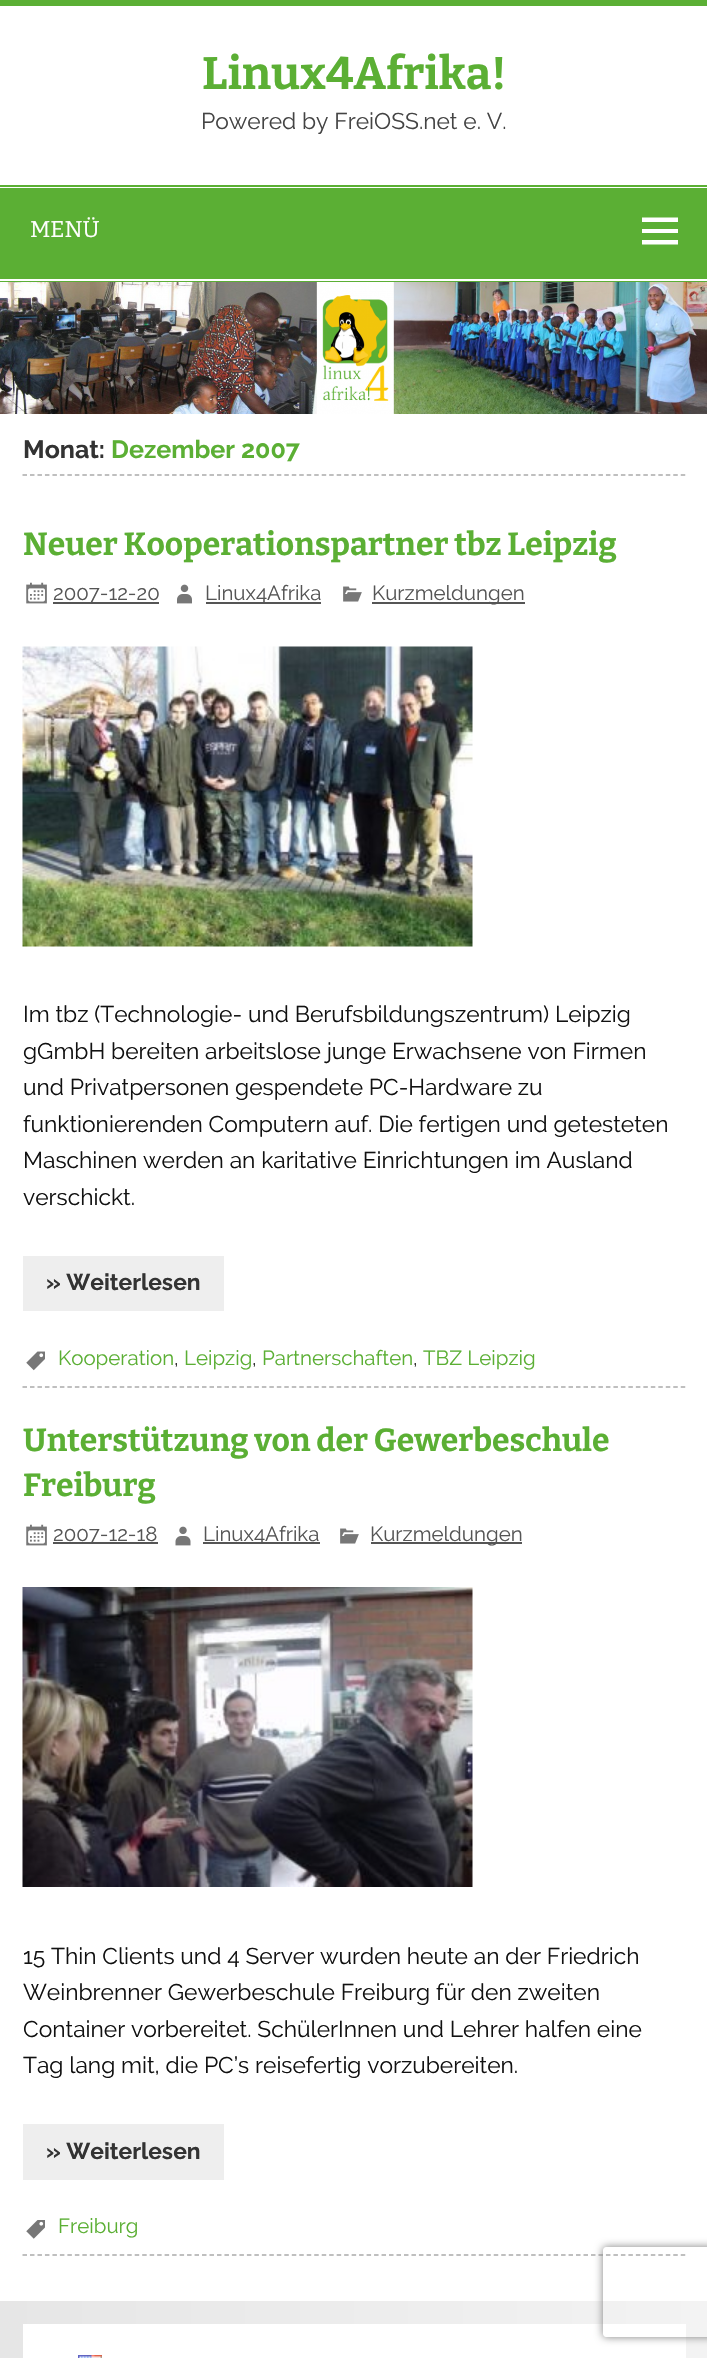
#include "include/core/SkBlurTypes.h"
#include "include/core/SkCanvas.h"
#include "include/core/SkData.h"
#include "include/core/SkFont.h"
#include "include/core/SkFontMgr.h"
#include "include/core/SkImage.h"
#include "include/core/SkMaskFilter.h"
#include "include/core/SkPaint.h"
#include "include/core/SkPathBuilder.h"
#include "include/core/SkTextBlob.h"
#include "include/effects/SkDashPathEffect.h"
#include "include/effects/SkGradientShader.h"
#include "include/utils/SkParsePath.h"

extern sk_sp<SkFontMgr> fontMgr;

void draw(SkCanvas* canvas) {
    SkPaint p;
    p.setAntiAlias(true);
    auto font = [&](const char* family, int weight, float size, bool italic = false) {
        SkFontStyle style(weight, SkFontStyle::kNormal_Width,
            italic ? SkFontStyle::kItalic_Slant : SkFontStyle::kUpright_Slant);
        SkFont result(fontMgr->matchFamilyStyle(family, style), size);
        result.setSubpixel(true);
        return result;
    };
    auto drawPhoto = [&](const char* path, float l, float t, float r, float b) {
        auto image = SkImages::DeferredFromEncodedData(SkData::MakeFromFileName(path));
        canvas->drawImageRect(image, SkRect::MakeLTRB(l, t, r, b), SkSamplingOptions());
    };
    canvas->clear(0xFFFFFFFF);
    p.setColor(0xFF5BAF34);
    canvas->drawRect(SkRect::MakeLTRB(0, 0, 707, 6), p);
    auto font1 = font("Bitter", 700, 45.5f);
    canvas->drawString("Linux4Afrika!", 202, 89, font1, p);
    auto font2 = font("Raleway", 400, 22.8f);
    p.setColor(0xFF444444);
    canvas->drawString("Powered by FreiOSS.net e. V.", 201, 129, font2, p);
    {
        const struct { float l, t, r, b; SkColor color; } items[] = {
            {0, 185, 707, 187, 0xFF5BAF34},
            {0, 281, 707, 282, 0xFF5BAF34},
            {0, 188, 707, 279, 0xFF5BAF34},
        };
        for (auto [l, t, r, b, color] : items) {
            p.setColor(color);
            canvas->drawRect(SkRect::MakeLTRB(l, t, r, b), p);
        }
    }
    auto font3 = font("Bitter", 400, 22.8f);
    p.setColor(0xFFFFFFFF);
    canvas->drawString("MENÜ", 30, 237, font3, p);
    canvas->drawPath(SkPathBuilder().moveTo(642, 244.5f).lineTo(642, 240).lineTo(678, 240).lineTo(678, 244.5f).close().moveTo(642, 217.5f).lineTo(678, 217.5f).lineTo(678, 222).lineTo(642, 222).close().moveTo(642, 233).lineTo(642, 229).lineTo(678, 229).lineTo(678, 233).close().detach(), p);
    drawPhoto("media/1.png", 0, 282, 707, 414);
    p.setStyle(SkPaint::kStroke_Style);
    p.setStrokeWidth(1.5f);
    p.setColor(0xFFAAAAAA);
    p.setPathEffect(SkDashPathEffect::Make({{4.5f, 2.98f}}, 0));
    canvas->drawPath(SkPathBuilder().moveTo(22.5f, 475).lineTo(685.5f, 475).detach(), p);
    p.setPathEffect(nullptr);
    auto font4 = font("Raleway", 700, 25);
    p.setStyle(SkPaint::kFill_Style);
    p.setColor(0xFF333333);
    canvas->drawString("Monat:", 23, 458, font4, p);
    p.setColor(0xFF5BAF34);
    canvas->drawString("Dezember 2007", 111, 458, font4, p);
    p.setStyle(SkPaint::kStroke_Style);
    p.setColor(0xFFAAAAAA);
    p.setPathEffect(SkDashPathEffect::Make({{4.5f, 2.98f}}, 0));
    canvas->drawPath(SkPathBuilder().moveTo(22.5f, 1387).lineTo(685.5f, 1387).detach(), p);
    p.setPathEffect(nullptr);
    auto font5 = font("Bitter", 700, 31.9f);
    p.setStyle(SkPaint::kFill_Style);
    p.setColor(0xFF5BAF34);
    canvas->drawString("Neuer Kooperationspartner tbz Leipzig", 23, 555, font5, p);
    drawPhoto("media/2.png", 26, 582, 47, 604);
    p.setColor(0xFF555555);
    canvas->drawRect(SkRect::MakeLTRB(53, 602, 159, 604), p);
    auto font6 = font("Raleway", 400, 20.5f);
    canvas->drawString("2007-12-20", 53, 600, font6, p);
    drawPhoto("media/3.png", 177, 584, 192, 604);
    canvas->drawRect(SkRect::MakeLTRB(206, 602, 321, 604), p);
    canvas->drawString("Linux4Afrika", 205, 600, font6, p);
    drawPhoto("media/4.png", 343, 586, 362, 602);
    canvas->drawRect(SkRect::MakeLTRB(372, 602, 525, 604), p);
    canvas->drawString("Kurzmeldungen", 372, 600, font6, p);
    drawPhoto("media/5.png", 22, 646, 473, 947);
    p.setColor(0xFF111111);
    {
        const struct { const char* s; float x, y; } items[] = {
            {"Im tbz (Technologie- und Berufsbildungszentrum) Leipzig", 23, 1022},
            {"gGmbH bereiten arbeitslose junge Erwachsene von Firmen", 23, 1059},
            {"und Privatpersonen gespendete PC-Hardware zu", 23, 1095},
            {"funktionierenden Computern auf. Die fertigen und getesteten", 23, 1132},
            {"Maschinen werden an karitative Einrichtungen im Ausland", 23, 1168},
            {"verschickt.", 23, 1205},
        };
        for (auto [s, x, y] : items) {
            canvas->drawString(s, x, y, font2, p);
        }
    }
    p.setColor(0xFFEEEEEE);
    canvas->drawRect(SkRect::MakeLTRB(23, 1256, 224, 1311), p);
    auto font7 = font("Raleway", 700, 22.8f);
    p.setColor(0xFF333333);
    canvas->drawString("» Weiterlesen", 46, 1290, font7, p);
    drawPhoto("media/6.png", 26, 1351, 45, 1371);
    p.setColor(0xFF5BAF34);
    canvas->drawString("Kooperation", 58, 1365, font6, p);
    p.setColor(0xFF333333);
    canvas->drawString(",", 174, 1365, font6, p);
    p.setColor(0xFF5BAF34);
    canvas->drawString("Leipzig", 184, 1365, font6, p);
    p.setColor(0xFF333333);
    canvas->drawString(",", 252, 1365, font6, p);
    p.setColor(0xFF5BAF34);
    canvas->drawString("Partnerschaften", 262, 1365, font6, p);
    p.setColor(0xFF333333);
    canvas->drawString(",", 413, 1365, font6, p);
    p.setColor(0xFF5BAF34);
    canvas->drawString("TBZ Leipzig", 423, 1365, font6, p);
    p.setStyle(SkPaint::kStroke_Style);
    p.setColor(0xFFAAAAAA);
    p.setPathEffect(SkDashPathEffect::Make({{4.5f, 2.98f}}, 0));
    canvas->drawPath(SkPathBuilder().moveTo(22.5f, 2255).lineTo(685.5f, 2255).detach(), p);
    p.setPathEffect(nullptr);
    p.setStyle(SkPaint::kFill_Style);
    p.setColor(0xFF5BAF34);
    canvas->drawString("Unterstützung von der Gewerbeschule", 23, 1451, font5, p);
    canvas->drawString("Freiburg", 23, 1496, font5, p);
    drawPhoto("media/2.png", 26, 1524, 47, 1546);
    p.setColor(0xFF555555);
    canvas->drawRect(SkRect::MakeLTRB(53, 1542, 158, 1544), p);
    canvas->drawString("2007-12-18", 53, 1541, font6, p);
    drawPhoto("media/7.png", 175, 1526, 191, 1546);
    canvas->drawRect(SkRect::MakeLTRB(203, 1542, 320, 1544), p);
    canvas->drawString("Linux4Afrika", 203, 1541, font6, p);
    drawPhoto("media/4.png", 340, 1528, 359, 1544);
    canvas->drawRect(SkRect::MakeLTRB(371, 1542, 522, 1544), p);
    canvas->drawString("Kurzmeldungen", 370, 1541, font6, p);
    drawPhoto("media/8.png", 22, 1587, 473, 1887);
    p.setColor(0xFF111111);
    {
        const struct { const char* s; float x, y; } items[] = {
            {"15 Thin Clients und 4 Server wurden heute an der Friedrich", 23, 1964},
            {"Weinbrenner Gewerbeschule Freiburg für den zweiten", 23, 2000},
            {"Container vorbereitet. SchülerInnen und Lehrer halfen eine", 23, 2037},
            {"Tag lang mit, die PC’s reisefertig vorzubereiten.", 23, 2073},
        };
        for (auto [s, x, y] : items) {
            canvas->drawString(s, x, y, font2, p);
        }
    }
    p.setColor(0xFFEEEEEE);
    canvas->drawRect(SkRect::MakeLTRB(23, 2124, 224, 2180), p);
    p.setColor(0xFF333333);
    canvas->drawString("» Weiterlesen", 46, 2159, font7, p);
    drawPhoto("media/9.png", 26, 2220, 45, 2239);
    p.setColor(0xFF5BAF34);
    canvas->drawString("Freiburg", 58, 2233, font6, p);
    {
        const SkColor colors[] = {0xFFE6E6E6, 0xFFF3F3F3};
        const float stops[] = {0, 1};
        const SkPoint ends[] = {{0, 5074}, {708, 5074}};
        p.setShader(SkGradientShader::MakeLinear(ends, colors, stops, 2, SkTileMode::kClamp));
        p.setAlpha(255);
    }
    canvas->drawRect(SkRect::MakeLTRB(0, 2301, 707, 2358), p);
    p.setShader(nullptr);
    p.setColor(0xFFFFFFFF);
    canvas->drawRect(SkRect::MakeLTRB(23, 2324, 686, 2358), p);
    drawPhoto("media/10.png", 78, 2355, 102, 2358);
    canvas->save();
    canvas->clipPath(SkPathBuilder(SkPathFillType::kEvenOdd).moveTo(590, 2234).lineTo(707, 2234).lineTo(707, 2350).lineTo(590, 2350).close().moveTo(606, 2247).lineTo(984, 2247).cubicTo(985.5f, 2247, 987, 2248.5f, 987, 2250).lineTo(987, 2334).cubicTo(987, 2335.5f, 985.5f, 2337, 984, 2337).lineTo(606, 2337).cubicTo(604.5f, 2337, 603, 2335.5f, 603, 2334).lineTo(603, 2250).cubicTo(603, 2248.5f, 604.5f, 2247, 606, 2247).close().detach(), true);
    p.setColor(0xFF808080);
    p.setMaskFilter(SkMaskFilter::MakeBlur(kNormal_SkBlurStyle, 4));
    canvas->drawRoundRect(SkRect::MakeLTRB(603, 2247, 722, 2337), 3, 3, p);
    p.setMaskFilter(nullptr);
    canvas->restore();
}
